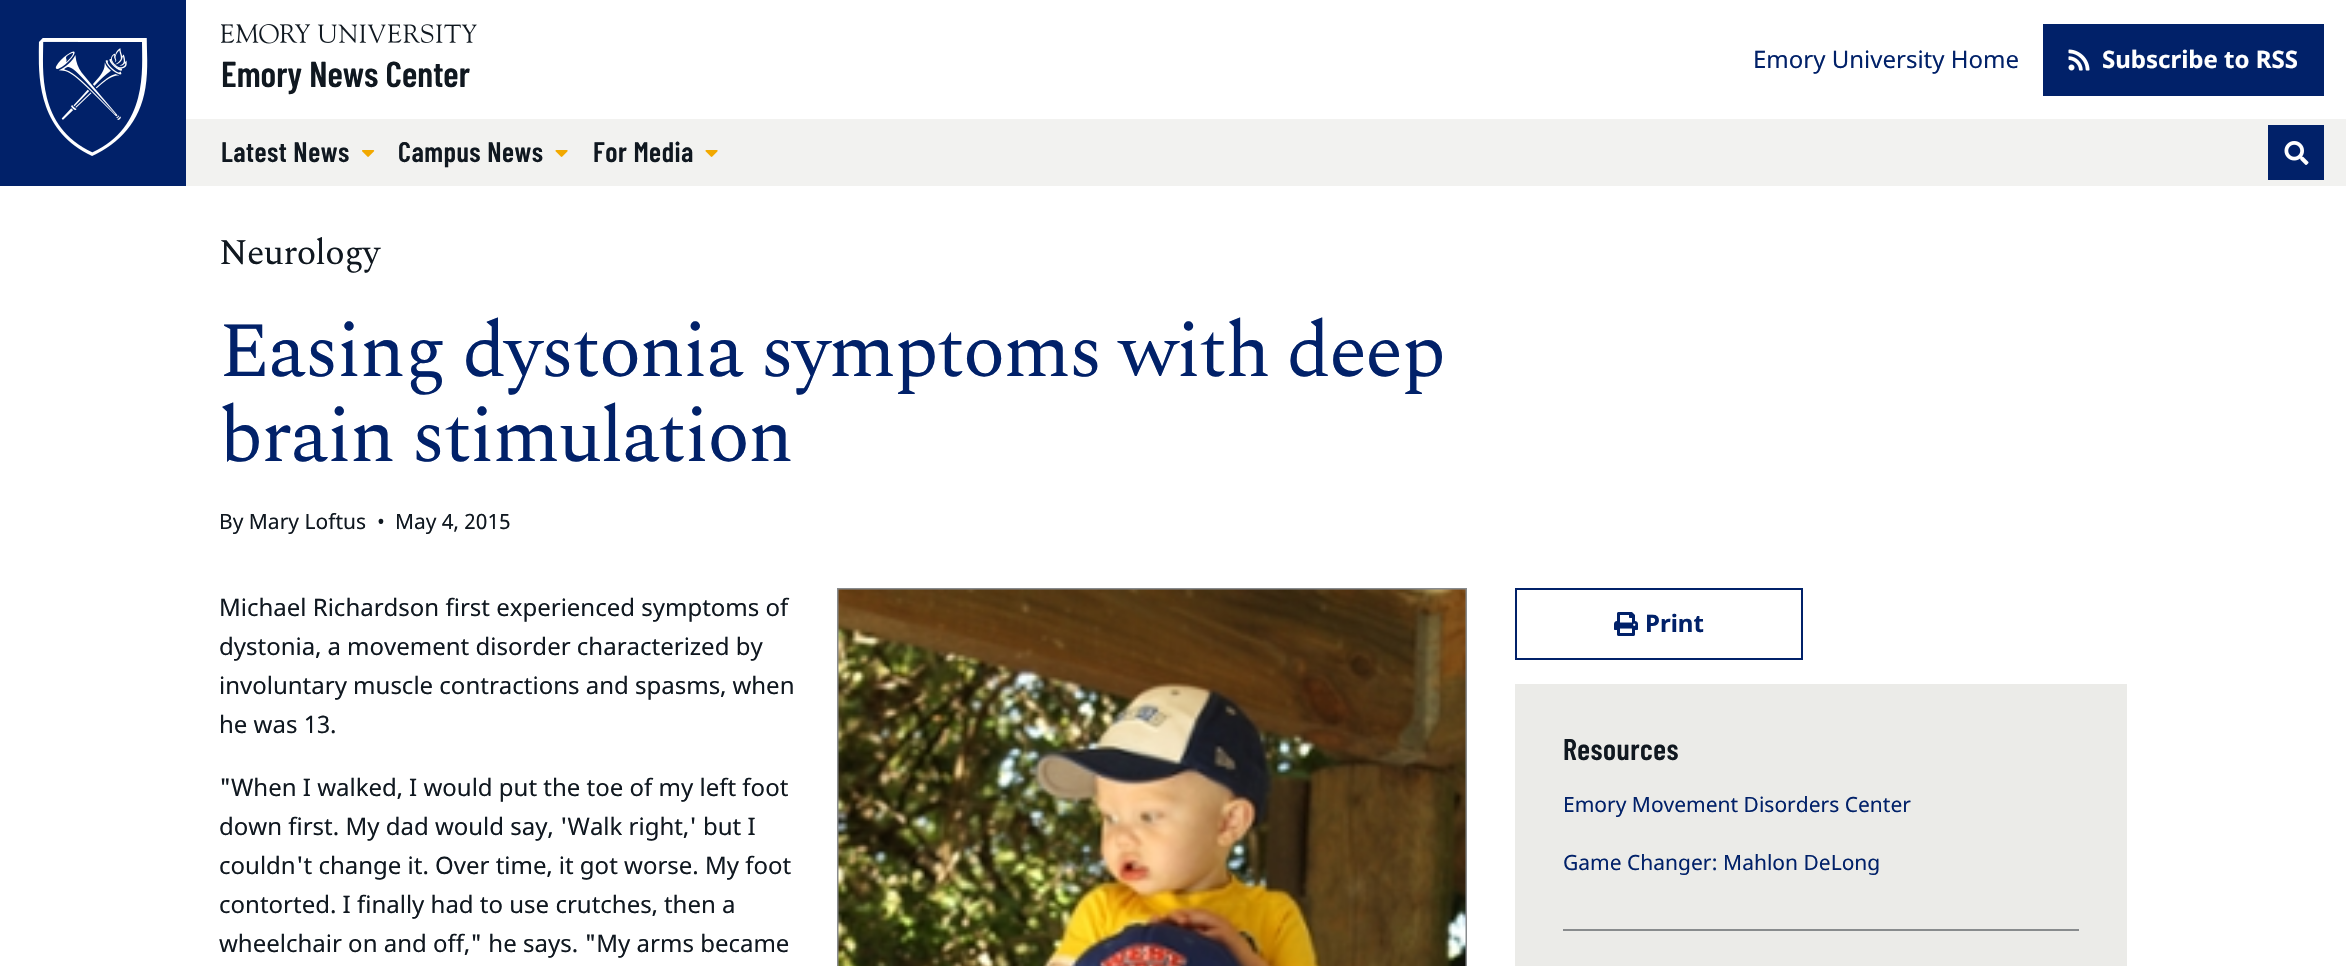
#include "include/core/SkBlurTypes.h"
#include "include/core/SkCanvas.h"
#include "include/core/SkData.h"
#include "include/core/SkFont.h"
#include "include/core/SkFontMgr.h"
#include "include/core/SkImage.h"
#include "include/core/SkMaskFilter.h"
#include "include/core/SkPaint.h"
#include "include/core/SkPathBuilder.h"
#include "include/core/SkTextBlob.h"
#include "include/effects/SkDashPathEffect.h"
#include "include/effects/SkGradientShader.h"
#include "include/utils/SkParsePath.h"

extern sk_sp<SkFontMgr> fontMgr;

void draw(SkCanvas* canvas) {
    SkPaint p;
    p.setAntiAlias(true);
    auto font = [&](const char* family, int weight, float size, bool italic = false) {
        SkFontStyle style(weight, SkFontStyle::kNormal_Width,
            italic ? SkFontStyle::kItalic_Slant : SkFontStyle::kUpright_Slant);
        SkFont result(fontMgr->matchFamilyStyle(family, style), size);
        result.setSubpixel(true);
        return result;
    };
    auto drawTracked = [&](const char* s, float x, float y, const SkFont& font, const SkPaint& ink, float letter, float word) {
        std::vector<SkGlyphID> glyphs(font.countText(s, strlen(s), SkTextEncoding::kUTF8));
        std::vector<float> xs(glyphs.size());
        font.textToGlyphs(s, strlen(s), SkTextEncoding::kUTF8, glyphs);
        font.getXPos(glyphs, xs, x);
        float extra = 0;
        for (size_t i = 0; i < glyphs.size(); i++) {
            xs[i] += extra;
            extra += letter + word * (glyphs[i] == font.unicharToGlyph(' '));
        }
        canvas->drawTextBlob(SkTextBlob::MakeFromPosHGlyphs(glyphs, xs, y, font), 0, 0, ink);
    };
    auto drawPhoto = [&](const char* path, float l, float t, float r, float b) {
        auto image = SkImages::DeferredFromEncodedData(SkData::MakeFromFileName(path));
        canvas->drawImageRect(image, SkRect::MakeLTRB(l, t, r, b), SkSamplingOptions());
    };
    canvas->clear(0xFFFFFFFF);
    p.setColor(0xFF012169);
    canvas->drawRect(SkRect::MakeLTRB(0, 0, 186, 186), p);
    drawPhoto("media/1.png", 38, 38, 148, 156);
    auto font1 = font("Noto Sans", 400, 24);
    canvas->drawString("Emory University Home", 1753, 68, font1, p);
    canvas->drawRect(SkRect::MakeLTRB(2043, 24, 2324, 96), p);
    drawPhoto("media/2.png", 2068, 49, 2090, 71);
    auto font2 = font("Noto Sans", 700, 24);
    p.setColor(0xFFFFFFFF);
    canvas->drawString("Subscribe to RSS", 2102, 68, font2, p);
    p.setColor(0xFFF2F2F0);
    canvas->drawRect(SkRect::MakeLTRB(186, 119, 2346, 186), p);
    auto font3 = font("Barlow Condensed", 600, 28.25f);
    p.setColor(0xFF101820);
    drawTracked("Latest News", 221, 162, font3, p, 0.5f, 0);
    drawPhoto("media/3.png", 362, 150, 375, 157);
    drawTracked("Campus News", 398, 162, font3, p, 0.5f, 0);
    drawPhoto("media/4.png", 555, 150, 568, 157);
    drawTracked("For Media", 593, 162, font3, p, 0.5f, 0);
    drawPhoto("media/4.png", 705, 150, 718, 157);
    p.setColor(0xFF012169);
    canvas->drawRect(SkRect::MakeLTRB(2268, 125, 2324, 180), p);
    drawPhoto("media/5.png", 2284, 141, 2309, 165);
    drawPhoto("media/6.png", 221, 24, 477, 44);
    auto font4 = font("Barlow Condensed", 600, 36);
    p.setColor(0xFF101820);
    canvas->drawString("Emory News Center", 221, 87, font4, p);
    auto font5 = font("Spectral", 400, 36);
    drawTracked("Neurology", 219, 264, font5, p, -0.75f, 0);
    auto font6 = font("Spectral", 400, 78);
    p.setColor(0xFF012169);
    drawTracked("Easing dystonia symptoms with deep", 219, 376, font6, p, -1.55f, 0);
    drawTracked("brain stimulation", 219, 461, font6, p, -1.55f, 0);
    auto font7 = font("Noto Sans", 400, 21);
    p.setColor(0xFF101820);
    {
        const struct { const char* s; float x, y; } items[] = {
            {"By Mary Loftus", 219, 529},
            {"•", 377, 529},
            {"May 4, 2015", 395, 529},
        };
        for (auto [s, x, y] : items) {
            canvas->drawString(s, x, y, font7, p);
        }
    }
    {
        const struct { const char* s; float x, y; } items[] = {
            {"Michael Richardson first experienced symptoms of", 219, 616},
            {"dystonia, a movement disorder characterized by", 219, 655},
            {"involuntary muscle contractions and spasms, when", 219, 694},
            {"he was 13.", 219, 733},
        };
        for (auto [s, x, y] : items) {
            canvas->drawString(s, x, y, font1, p);
        }
    }
    p.setStyle(SkPaint::kStroke_Style);
    p.setStrokeWidth(2);
    p.setColor(0xFF888B8D);
    canvas->drawRect(SkRect::MakeLTRB(838, 589, 1466, 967), p);
    drawPhoto("media/7.png", 838, 589, 1466, 966);
    p.setStyle(SkPaint::kFill_Style);
    p.setColor(0xFF101820);
    {
        const struct { const char* s; float x, y; } items[] = {
            {"\"When I walked, I would put the toe of my left foot", 219, 796},
            {"down first. My dad would say, 'Walk right,' but I", 219, 835},
            {"couldn't change it. Over time, it got worse. My foot", 219, 874},
            {"contorted. I finally had to use crutches, then a", 219, 913},
            {"wheelchair on and off,\" he says. \"My arms became", 219, 952},
        };
        for (auto [s, x, y] : items) {
            canvas->drawString(s, x, y, font1, p);
        }
    }
    p.setStyle(SkPaint::kStroke_Style);
    p.setColor(0xFF012169);
    canvas->drawRect(SkRect::MakeLTRB(1516, 589, 1802, 659), p);
    drawPhoto("media/8.png", 1614, 612, 1638, 636);
    p.setStyle(SkPaint::kFill_Style);
    canvas->drawString("Print", 1645, 632, font2, p);
    p.setColor(0xFFEBEBE8);
    canvas->drawRect(SkRect::MakeLTRB(1515, 684, 2127, 966), p);
    p.setColor(0xFF888B8D);
    canvas->drawRect(SkRect::MakeLTRB(1563, 929, 2079, 931), p);
    auto font8 = font("Barlow Condensed", 600, 30);
    p.setColor(0xFF101820);
    drawTracked("Resources", 1563, 760, font8, p, 0.5f, 0);
    p.setColor(0xFF012169);
    canvas->drawString("Emory Movement Disorders Center", 1563, 812, font7, p);
    canvas->drawString("Game Changer: Mahlon DeLong", 1563, 870, font7, p);
}
